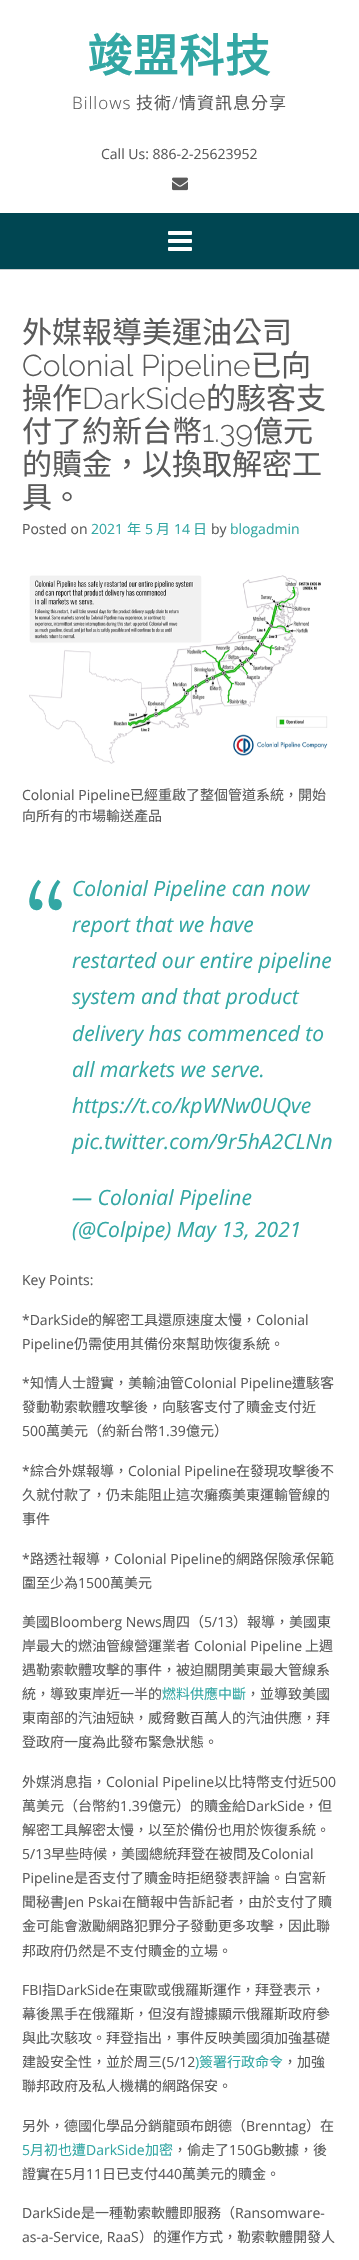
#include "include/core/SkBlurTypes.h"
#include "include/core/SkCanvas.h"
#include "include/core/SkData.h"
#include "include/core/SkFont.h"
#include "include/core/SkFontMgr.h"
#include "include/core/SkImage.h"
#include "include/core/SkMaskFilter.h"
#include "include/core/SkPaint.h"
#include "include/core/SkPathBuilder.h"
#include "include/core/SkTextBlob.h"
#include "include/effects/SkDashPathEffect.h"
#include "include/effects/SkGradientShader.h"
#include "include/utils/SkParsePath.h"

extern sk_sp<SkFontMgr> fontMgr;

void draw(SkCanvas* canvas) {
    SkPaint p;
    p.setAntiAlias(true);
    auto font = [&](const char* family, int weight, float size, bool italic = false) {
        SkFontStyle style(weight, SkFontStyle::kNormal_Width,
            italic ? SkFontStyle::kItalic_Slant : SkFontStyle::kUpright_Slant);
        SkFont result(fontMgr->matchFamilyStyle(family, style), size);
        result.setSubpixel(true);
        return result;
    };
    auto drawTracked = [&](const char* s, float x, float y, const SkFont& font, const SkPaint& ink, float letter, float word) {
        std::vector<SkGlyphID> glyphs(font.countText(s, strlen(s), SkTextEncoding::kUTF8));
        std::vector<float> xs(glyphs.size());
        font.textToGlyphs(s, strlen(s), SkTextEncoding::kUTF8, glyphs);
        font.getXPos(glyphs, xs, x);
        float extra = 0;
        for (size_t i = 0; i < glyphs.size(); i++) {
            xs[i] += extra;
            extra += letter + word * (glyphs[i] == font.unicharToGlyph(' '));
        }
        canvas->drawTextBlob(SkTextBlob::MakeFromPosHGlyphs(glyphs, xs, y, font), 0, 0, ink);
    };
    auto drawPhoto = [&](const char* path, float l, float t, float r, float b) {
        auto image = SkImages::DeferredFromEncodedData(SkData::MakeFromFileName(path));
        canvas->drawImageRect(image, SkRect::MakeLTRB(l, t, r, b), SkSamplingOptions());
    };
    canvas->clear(0xFFFFFFFF);
    auto font1 = font("Noto Sans CJK TC", 700, 45);
    p.setColor(0xFF33A7A4);
    drawTracked("竣盟科技", 87, 72, font1, p, 1, 0);
    auto font2 = font("Open Sans", 300, 17);
    p.setColor(0xFF5A5A5A);
    drawTracked("Billows", 72, 109, font2, p, 1, 0);
    auto font3 = font("Noto Sans CJK TC", 400, 17);
    drawTracked("技術", 136, 109, font3, p, 1, 0);
    drawTracked("/", 172, 109, font2, p, 1, 0);
    drawTracked("情資訊息分享", 179, 109, font3, p, 1, 0);
    auto font4 = font("Open Sans", 400, 14);
    canvas->drawString("Call Us: 886-2-25623952", 101, 159, font4, p);
    drawPhoto("media/1.png", 172, 177, 188, 191);
    p.setColor(0xFF004652);
    canvas->drawRect(SkRect::MakeLTRB(0, 213, 359, 269), p);
    p.setColor(0xFFCACFD0);
    canvas->drawRect(SkRect::MakeLTRB(0, 269, 359, 270), p);
    drawPhoto("media/2.png", 168, 231, 192, 251);
    auto font5 = font("Noto Sans CJK TC", 400, 30);
    p.setColor(0xFF5A5A5A);
    canvas->drawString("外媒報導美運油公司", 22, 343, font5, p);
    auto font6 = font("Raleway", 300, 30);
    canvas->drawString("Colonial Pipeline", 22, 376, font6, p);
    canvas->drawString("已向", 251, 376, font5, p);
    canvas->drawString("操作", 22, 409, font5, p);
    canvas->drawString("DarkSide", 82, 409, font6, p);
    canvas->drawString("的駭客支", 206, 409, font5, p);
    canvas->drawString("付了約新台幣", 22, 442, font5, p);
    canvas->drawString("1.39", 202, 442, font6, p);
    {
        const struct { const char* s; float x, y; } items[] = {
            {"億元", 253, 442},
            {"的贖金，以換取解密工", 22, 475},
            {"具。", 22, 508},
        };
        for (auto [s, x, y] : items) {
            canvas->drawString(s, x, y, font5, p);
        }
    }
    canvas->drawString("Posted on", 22, 534, font4, p);
    p.setColor(0xFF33A7A4);
    canvas->drawString("2021", 91, 534, font4, p);
    auto font7 = font("Noto Sans CJK TC", 400, 14);
    canvas->drawString("年", 127, 534, font7, p);
    canvas->drawString("5", 145, 534, font4, p);
    canvas->drawString("月", 156, 534, font7, p);
    canvas->drawString("14", 174, 534, font4, p);
    canvas->drawString("日", 193, 534, font7, p);
    p.setColor(0xFF5A5A5A);
    canvas->drawString("by", 211, 534, font4, p);
    p.setColor(0xFF33A7A4);
    canvas->drawString("blogadmin", 230, 534, font4, p);
    drawPhoto("media/3.png", 29, 575, 328, 764);
    p.setColor(0xFF5A5A5A);
    canvas->drawString("Colonial Pipeline", 22, 800, font4, p);
    canvas->drawString("已經重啟了整個管道系統，開始", 130, 800, font7, p);
    canvas->drawString("向所有的市場輸送產品", 22, 821, font7, p);
    auto font8 = font("Lora", 400, 110, true);
    p.setColor(0xFF33A7A4);
    canvas->drawString("“", 22, 963, font8, p);
    auto font9 = font("Open Sans", 400, 21, true);
    {
        const struct { const char* s; float x, y; } items[] = {
            {"Colonial Pipeline can now", 72, 896},
            {"report that we have", 72, 932},
            {"restarted our entire pipeline", 72, 968},
            {"system and that product", 72, 1004},
            {"delivery has commenced to", 72, 1041},
            {"all markets we serve.", 72, 1077},
            {"https://t.co/kpWNw0UQve", 72, 1113},
            {"pic.twitter.com/9r5hA2CLNn", 72, 1149},
            {"— Colonial Pipeline", 72, 1205},
            {"(@Colpipe) May 13, 2021", 72, 1237},
        };
        for (auto [s, x, y] : items) {
            canvas->drawString(s, x, y, font9, p);
        }
    }
    p.setColor(0xFF5A5A5A);
    canvas->drawString("Key Points:", 22, 1285, font4, p);
    canvas->drawString("*DarkSide", 22, 1325, font4, p);
    canvas->drawString("的解密工具還原速度太慢，", 88, 1325, font7, p);
    canvas->drawString("Colonial", 256, 1325, font4, p);
    canvas->drawString("Pipeline", 22, 1349, font4, p);
    canvas->drawString("仍需使用其備份來幫助恢復系統。", 74, 1349, font7, p);
    canvas->drawString("*", 22, 1388, font4, p);
    canvas->drawString("知情人士證實，美輸油管", 30, 1388, font7, p);
    canvas->drawString("Colonial Pipeline", 184, 1388, font4, p);
    canvas->drawString("遭駭客", 292, 1388, font7, p);
    canvas->drawString("發動勒索軟體攻擊後，向駭客支付了贖金支付近", 22, 1412, font7, p);
    canvas->drawString("500", 22, 1436, font4, p);
    canvas->drawString("萬美元（約新台幣", 46, 1436, font7, p);
    canvas->drawString("1.39", 158, 1436, font4, p);
    canvas->drawString("億元）", 186, 1436, font7, p);
    canvas->drawString("*", 22, 1476, font4, p);
    canvas->drawString("綜合外媒報導，", 30, 1476, font7, p);
    canvas->drawString("Colonial Pipeline", 128, 1476, font4, p);
    {
        const struct { const char* s; float x, y; } items[] = {
            {"在發現攻擊後不", 236, 1476},
            {"久就付款了，仍未能阻止這次癱瘓美東運輸管線的", 22, 1500},
            {"事件", 22, 1524},
        };
        for (auto [s, x, y] : items) {
            canvas->drawString(s, x, y, font7, p);
        }
    }
    canvas->drawString("*", 22, 1564, font4, p);
    canvas->drawString("路透社報導，", 30, 1564, font7, p);
    canvas->drawString("Colonial Pipeline", 114, 1564, font4, p);
    canvas->drawString("的網路保險承保範", 222, 1564, font7, p);
    canvas->drawString("圍至少為", 22, 1588, font7, p);
    canvas->drawString("1500", 78, 1588, font4, p);
    canvas->drawString("萬美元", 110, 1588, font7, p);
    canvas->drawString("美國", 22, 1627, font7, p);
    canvas->drawString("Bloomberg News", 50, 1627, font4, p);
    canvas->drawString("周四（", 162, 1627, font7, p);
    canvas->drawString("5/13", 204, 1627, font4, p);
    canvas->drawString("）報導，美國東", 233, 1627, font7, p);
    canvas->drawString("岸最大的燃油管線營運業者", 22, 1651, font7, p);
    canvas->drawString("Colonial Pipeline", 194, 1651, font4, p);
    {
        const struct { const char* s; float x, y; } items[] = {
            {"上週", 305, 1651},
            {"遇勒索軟體攻擊的事件，被迫關閉美東最大管線系", 22, 1675},
            {"統，導致東岸近一半的", 22, 1699},
        };
        for (auto [s, x, y] : items) {
            canvas->drawString(s, x, y, font7, p);
        }
    }
    p.setColor(0xFF33A7A4);
    canvas->drawString("燃料供應中斷", 162, 1699, font7, p);
    p.setColor(0xFF5A5A5A);
    {
        const struct { const char* s; float x, y; } items[] = {
            {"，並導致美國", 246, 1699},
            {"東南部的汽油短缺，威脅數百萬人的汽油供應，拜", 22, 1723},
            {"登政府一度為此發布緊急狀態。", 22, 1747},
            {"外媒消息指，", 22, 1787},
        };
        for (auto [s, x, y] : items) {
            canvas->drawString(s, x, y, font7, p);
        }
    }
    canvas->drawString("Colonial Pipeline", 106, 1787, font4, p);
    canvas->drawString("以比特幣支付近", 214, 1787, font7, p);
    canvas->drawString("500", 312, 1787, font4, p);
    canvas->drawString("萬美元（台幣約", 22, 1811, font7, p);
    canvas->drawString("1.39", 120, 1811, font4, p);
    canvas->drawString("億元）的贖金給", 148, 1811, font7, p);
    canvas->drawString("DarkSide", 246, 1811, font4, p);
    canvas->drawString("，但", 304, 1811, font7, p);
    canvas->drawString("解密工具解密太慢，以至於備份也用於恢復系統。", 22, 1835, font7, p);
    canvas->drawString("5/13", 22, 1859, font4, p);
    canvas->drawString("早些時候，美國總統拜登在被問及", 51, 1859, font7, p);
    canvas->drawString("Colonial", 261, 1859, font4, p);
    canvas->drawString("Pipeline", 22, 1883, font4, p);
    canvas->drawString("是否支付了贖金時拒絕發表評論。白宮新", 74, 1883, font7, p);
    canvas->drawString("聞秘書", 22, 1907, font7, p);
    canvas->drawString("Jen Pskai", 64, 1907, font4, p);
    {
        const struct { const char* s; float x, y; } items[] = {
            {"在簡報中告訴記者，由於支付了贖", 122, 1907},
            {"金可能會激勵網路犯罪分子發動更多攻擊，因此聯", 22, 1931},
            {"邦政府仍然是不支付贖金的立場。", 22, 1956},
        };
        for (auto [s, x, y] : items) {
            canvas->drawString(s, x, y, font7, p);
        }
    }
    canvas->drawString("FBI", 22, 1995, font4, p);
    canvas->drawString("指", 42, 1995, font7, p);
    canvas->drawString("DarkSide", 56, 1995, font4, p);
    {
        const struct { const char* s; float x, y; } items[] = {
            {"在東歐或俄羅斯運作，拜登表示，", 115, 1995},
            {"幕後黑手在俄羅斯，但沒有證據顯示俄羅斯政府參", 22, 2019},
            {"與此次駭攻。拜登指出，事件反映美國須加強基礎", 22, 2043},
            {"建設安全性，並於周三", 22, 2067},
        };
        for (auto [s, x, y] : items) {
            canvas->drawString(s, x, y, font7, p);
        }
    }
    canvas->drawString("(5/12", 162, 2067, font4, p);
    p.setColor(0xFF33A7A4);
    canvas->drawString(")", 195, 2067, font4, p);
    canvas->drawString("簽署行政命令", 199, 2067, font7, p);
    p.setColor(0xFF5A5A5A);
    {
        const struct { const char* s; float x, y; } items[] = {
            {"，加強", 283, 2067},
            {"聯邦政府及私人機構的網路保安。", 22, 2091},
            {"另外，德國化學品分銷龍頭布朗德（", 22, 2131},
        };
        for (auto [s, x, y] : items) {
            canvas->drawString(s, x, y, font7, p);
        }
    }
    canvas->drawString("Brenntag", 246, 2131, font4, p);
    canvas->drawString("）在", 306, 2131, font7, p);
    p.setColor(0xFF33A7A4);
    canvas->drawString("5", 22, 2155, font4, p);
    canvas->drawString("月初也遭", 30, 2155, font7, p);
    canvas->drawString("DarkSide", 86, 2155, font4, p);
    canvas->drawString("加密", 145, 2155, font7, p);
    p.setColor(0xFF5A5A5A);
    canvas->drawString("，偷走了", 173, 2155, font7, p);
    canvas->drawString("150Gb", 229, 2155, font4, p);
    canvas->drawString("數據，後", 271, 2155, font7, p);
    canvas->drawString("證實在", 22, 2179, font7, p);
    canvas->drawString("5", 64, 2179, font4, p);
    canvas->drawString("月", 72, 2179, font7, p);
    canvas->drawString("11", 86, 2179, font4, p);
    canvas->drawString("日已支付", 102, 2179, font7, p);
    canvas->drawString("440", 158, 2179, font4, p);
    canvas->drawString("萬美元的贖金。", 182, 2179, font7, p);
    canvas->drawString("DarkSide", 22, 2218, font4, p);
    canvas->drawString("是一種勒索軟體即服務（", 81, 2218, font7, p);
    canvas->drawString("Ransomware-", 235, 2218, font4, p);
    canvas->drawString("as-a-Service, RaaS", 22, 2242, font4, p);
    canvas->drawString("）的運作方式，勒索軟體開發人", 139, 2242, font7, p);
}
